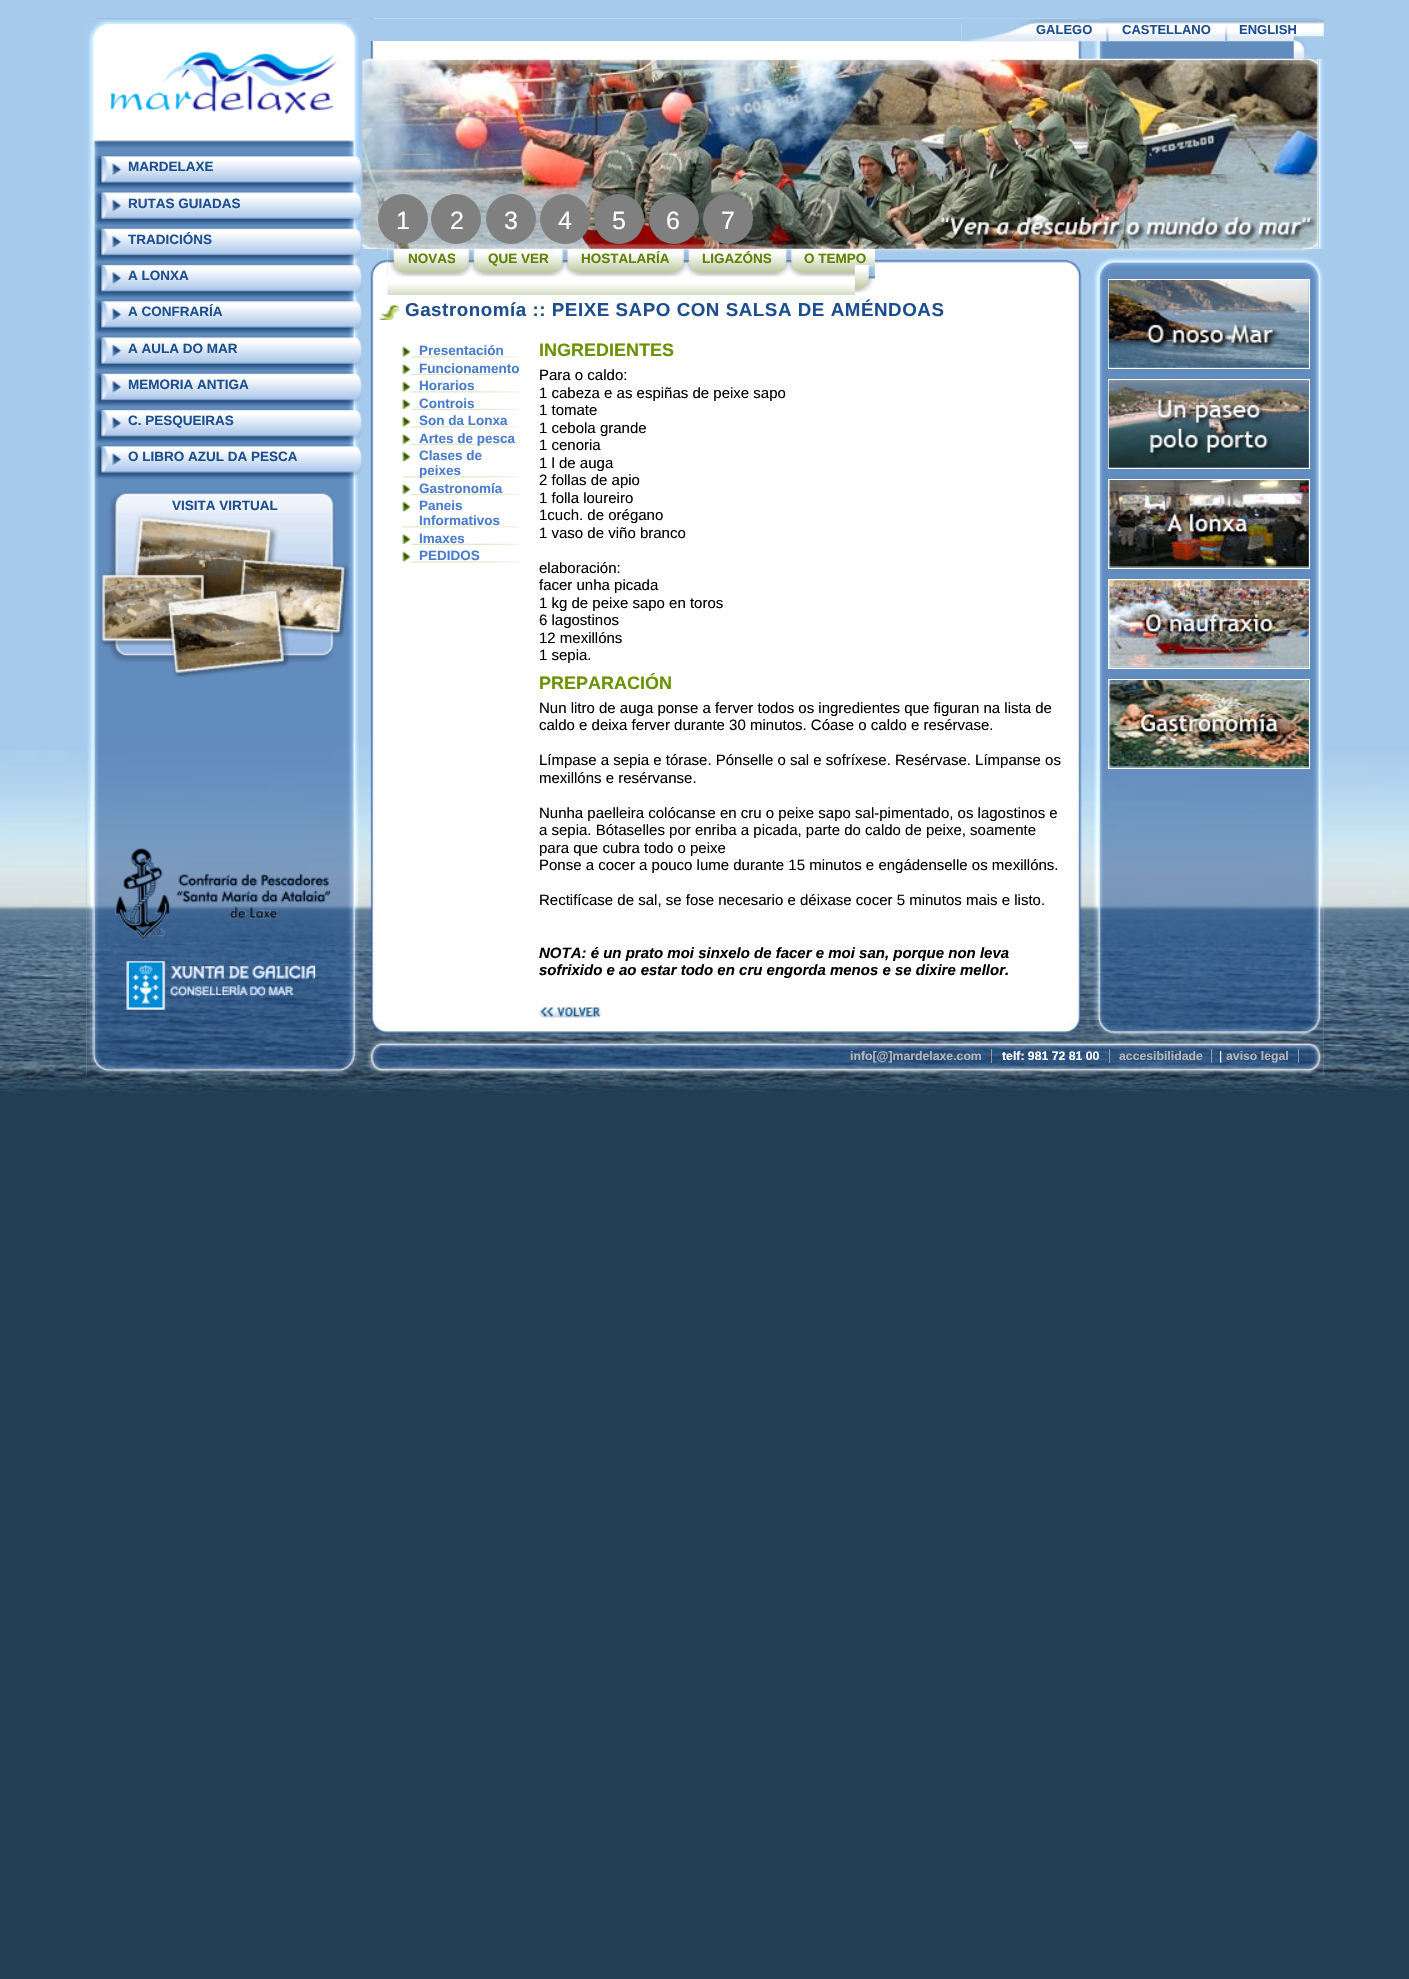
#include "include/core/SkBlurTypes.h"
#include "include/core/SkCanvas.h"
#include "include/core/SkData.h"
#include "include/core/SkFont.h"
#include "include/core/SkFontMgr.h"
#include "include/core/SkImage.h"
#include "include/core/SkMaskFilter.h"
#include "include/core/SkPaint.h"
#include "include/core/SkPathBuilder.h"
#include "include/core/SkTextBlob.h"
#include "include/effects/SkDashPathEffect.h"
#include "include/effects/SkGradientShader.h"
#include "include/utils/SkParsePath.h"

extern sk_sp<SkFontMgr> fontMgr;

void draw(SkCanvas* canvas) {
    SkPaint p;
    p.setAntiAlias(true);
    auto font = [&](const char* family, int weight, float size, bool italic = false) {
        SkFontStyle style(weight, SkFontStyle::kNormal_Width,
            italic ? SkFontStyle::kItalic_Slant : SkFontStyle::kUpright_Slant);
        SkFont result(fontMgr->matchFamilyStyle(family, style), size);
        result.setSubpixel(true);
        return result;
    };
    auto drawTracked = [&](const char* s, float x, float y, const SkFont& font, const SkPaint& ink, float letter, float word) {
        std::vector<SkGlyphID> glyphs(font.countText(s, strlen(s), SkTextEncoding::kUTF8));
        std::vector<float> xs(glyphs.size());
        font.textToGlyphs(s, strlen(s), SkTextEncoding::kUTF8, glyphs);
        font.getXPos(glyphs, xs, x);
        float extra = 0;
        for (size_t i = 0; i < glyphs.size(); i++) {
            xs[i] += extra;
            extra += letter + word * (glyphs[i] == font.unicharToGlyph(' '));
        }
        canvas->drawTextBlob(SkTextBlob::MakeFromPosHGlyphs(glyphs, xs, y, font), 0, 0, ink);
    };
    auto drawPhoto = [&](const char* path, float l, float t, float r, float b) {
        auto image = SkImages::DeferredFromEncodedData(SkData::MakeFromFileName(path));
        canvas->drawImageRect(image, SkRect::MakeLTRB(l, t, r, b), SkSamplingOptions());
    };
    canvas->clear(0xFF223E55);
    p.setColor(0xFFA6CAEC);
    canvas->drawRect(SkRect::MakeLTRB(0, 0, 1409, 750), p);
    drawPhoto("media/1.png", 0, 750, 1409, 1095);
    drawPhoto("media/2.png", 86, 18, 1324, 1075);
    drawPhoto("media/3.png", 86, 741, 1324, 1075);
    drawPhoto("media/4.png", 88, 18, 358, 148);
    drawPhoto("media/5.png", 93, 155, 362, 189);
    auto font1 = font("Liberation Sans", 700, 13.5f);
    p.setColor(0xFF1D4E8F);
    canvas->drawString("MARDELAXE", 128, 171, font1, p);
    drawPhoto("media/6.png", 93, 191, 362, 225);
    canvas->drawString("RUTAS GUIADAS", 128, 208, font1, p);
    drawPhoto("media/7.png", 93, 227, 362, 262);
    canvas->drawString("TRADICIÓNS", 128, 244, font1, p);
    drawPhoto("media/8.png", 93, 264, 362, 298);
    canvas->drawString("A LONXA", 128, 280, font1, p);
    drawPhoto("media/5.png", 93, 300, 362, 334);
    canvas->drawString("A CONFRARÍA", 128, 316, font1, p);
    drawPhoto("media/6.png", 93, 336, 362, 370);
    canvas->drawString("A AULA DO MAR", 128, 353, font1, p);
    drawPhoto("media/7.png", 93, 372, 362, 407);
    canvas->drawString("MEMORIA ANTIGA", 128, 389, font1, p);
    drawPhoto("media/8.png", 93, 409, 362, 443);
    canvas->drawString("C. PESQUEIRAS", 128, 425, font1, p);
    drawPhoto("media/5.png", 93, 445, 362, 479);
    canvas->drawString("O LIBRO AZUL DA PESCA", 128, 461, font1, p);
    drawPhoto("media/9.png", 109, 491, 335, 513);
    canvas->drawString("VISITA VIRTUAL", 172, 510, font1, p);
    drawPhoto("media/10.png", 100, 512, 349, 678);
    drawPhoto("media/11.png", 115, 848, 332, 941);
    drawPhoto("media/12.png", 126, 961, 316, 1010);
    p.setColor(0xFFA6CAEC);
    canvas->drawRect(SkRect::MakeLTRB(370, 19, 1324, 41), p);
    drawPhoto("media/13.png", 961, 18, 1324, 42);
    drawPhoto("media/14.png", 961, 18, 1036, 42);
    auto font2 = font("Liberation Sans", 700, 13);
    p.setColor(0xFF1D4E8F);
    canvas->drawString("GALEGO", 1036, 34, font2, p);
    drawPhoto("media/15.png", 1105, 26, 1109, 42);
    canvas->drawString("CASTELLANO", 1122, 34, font2, p);
    drawPhoto("media/16.png", 1223, 26, 1228, 42);
    canvas->drawString("ENGLISH", 1239, 34, font2, p);
    drawPhoto("media/17.png", 1293, 36, 1324, 59);
    drawPhoto("media/33.png", 1089, 248, 1323, 277);
    p.setColor(0xFFFFFFFF);
    canvas->drawRect(SkRect::MakeLTRB(363, 59, 1318, 249), p);
    drawPhoto("media/18.png", 362, 58, 1318, 249);
    p.setColor(0xFF808080);
    canvas->drawCircle(403, 219, 25, p);
    auto font3 = font("Liberation Sans", 400, 25);
    p.setColor(0xFFFFFFFF);
    canvas->drawString("1", 396, 229, font3, p);
    p.setColor(0xFF808080);
    canvas->drawCircle(456, 219, 25, p);
    p.setColor(0xFFFFFFFF);
    canvas->drawString("2", 450, 229, font3, p);
    p.setColor(0xFF808080);
    canvas->drawCircle(511, 219, 25, p);
    p.setColor(0xFFFFFFFF);
    canvas->drawString("3", 504, 229, font3, p);
    p.setColor(0xFF808080);
    canvas->drawCircle(565, 219, 25, p);
    p.setColor(0xFFFFFFFF);
    canvas->drawString("4", 558, 229, font3, p);
    p.setColor(0xFF808080);
    canvas->drawCircle(619, 219, 25, p);
    p.setColor(0xFFFFFFFF);
    canvas->drawString("5", 612, 229, font3, p);
    p.setColor(0xFF808080);
    canvas->drawCircle(674, 219, 25, p);
    p.setColor(0xFFFFFFFF);
    canvas->drawString("6", 666, 229, font3, p);
    p.setColor(0xFF808080);
    canvas->drawCircle(728, 219, 25, p);
    p.setColor(0xFFFFFFFF);
    canvas->drawString("7", 721, 229, font3, p);
    drawPhoto("media/19.png", 370, 249, 1089, 279);
    drawPhoto("media/20.png", 387, 249, 875, 295);
    drawPhoto("media/21.png", 387, 249, 407, 277);
    p.setColor(0xFF5D8100);
    canvas->drawString("NOVAS", 408, 263, font1, p);
    drawPhoto("media/22.png", 455, 249, 487, 277);
    canvas->drawString("QUE VER", 488, 263, font1, p);
    drawPhoto("media/23.png", 548, 249, 581, 277);
    canvas->drawString("HOSTALARÍA", 581, 263, font1, p);
    drawPhoto("media/22.png", 670, 249, 702, 277);
    canvas->drawString("LIGAZÓNS", 702, 263, font1, p);
    drawPhoto("media/24.png", 773, 249, 805, 277);
    canvas->drawString("O TEMPO", 804, 263, font1, p);
    drawPhoto("media/25.png", 855, 265, 875, 295);
    drawPhoto("media/26.png", 378, 304, 401, 320);
    auto font4 = font("Liberation Sans", 700, 18.75f);
    p.setColor(0xFF1D4E8F);
    drawTracked("Gastronomía :: PEIXE SAPO CON SALSA DE AMÉNDOAS", 405, 316, font4, p, 0.55f, 0);
    drawPhoto("media/27.png", 402, 356, 519, 358);
    drawPhoto("media/28.png", 402, 346, 412, 358);
    p.setColor(0xFF4A7CCC);
    canvas->drawString("Presentación", 419, 355, font1, p);
    drawPhoto("media/29.png", 402, 373, 519, 375);
    drawPhoto("media/30.png", 402, 363, 412, 375);
    canvas->drawString("Funcionamento", 419, 373, font1, p);
    drawPhoto("media/27.png", 402, 391, 519, 393);
    drawPhoto("media/28.png", 402, 381, 412, 393);
    canvas->drawString("Horarios", 419, 390, font1, p);
    drawPhoto("media/29.png", 402, 408, 519, 410);
    drawPhoto("media/30.png", 402, 398, 412, 410);
    canvas->drawString("Controis", 419, 408, font1, p);
    drawPhoto("media/27.png", 402, 426, 519, 428);
    drawPhoto("media/28.png", 402, 416, 412, 428);
    canvas->drawString("Son da Lonxa", 419, 425, font1, p);
    drawPhoto("media/29.png", 402, 443, 519, 445);
    drawPhoto("media/30.png", 402, 433, 412, 445);
    canvas->drawString("Artes de pesca", 419, 443, font1, p);
    drawPhoto("media/27.png", 402, 476, 519, 478);
    drawPhoto("media/31.png", 402, 451, 412, 462);
    canvas->drawString("Clases de", 419, 460, font1, p);
    canvas->drawString("peixes", 419, 475, font1, p);
    drawPhoto("media/29.png", 402, 493, 519, 495);
    drawPhoto("media/30.png", 402, 483, 412, 495);
    canvas->drawString("Gastronomía", 419, 493, font1, p);
    drawPhoto("media/27.png", 402, 526, 519, 528);
    drawPhoto("media/31.png", 402, 501, 412, 512);
    canvas->drawString("Paneis", 419, 510, font1, p);
    canvas->drawString("Informativos", 419, 525, font1, p);
    drawPhoto("media/29.png", 402, 543, 519, 545);
    drawPhoto("media/30.png", 402, 533, 412, 545);
    canvas->drawString("Imaxes", 419, 543, font1, p);
    drawPhoto("media/27.png", 402, 561, 519, 563);
    drawPhoto("media/28.png", 402, 551, 412, 563);
    canvas->drawString("PEDIDOS", 419, 560, font1, p);
    auto font5 = font("Liberation Sans", 700, 18);
    p.setColor(0xFF6A9100);
    canvas->drawString("INGREDIENTES", 539, 356, font5, p);
    auto font6 = font("Liberation Sans", 400, 15);
    p.setColor(0xFF000000);
    {
        const struct { const char* s; float x, y; } items[] = {
            {"Para o caldo:", 539, 380},
            {"1 cabeza e as espiñas de peixe sapo", 539, 398},
            {"1 tomate", 539, 415},
            {"1 cebola grande", 539, 433},
            {"1 cenoria", 539, 450},
            {"1 l de auga", 539, 468},
            {"2 follas de apio", 539, 485},
            {"1 folla loureiro", 539, 503},
            {"1cuch. de orégano", 539, 520},
            {"1 vaso de viño branco", 539, 538},
            {"elaboración:", 539, 573},
            {"facer unha picada", 539, 590},
            {"1 kg de peixe sapo en toros", 539, 608},
            {"6 lagostinos", 539, 625},
            {"12 mexillóns", 539, 643},
            {"1 sepia.", 539, 660},
        };
        for (auto [s, x, y] : items) {
            canvas->drawString(s, x, y, font6, p);
        }
    }
    p.setColor(0xFF6A9100);
    canvas->drawString("PREPARACIÓN", 539, 689, font5, p);
    p.setColor(0xFF000000);
    {
        const struct { const char* s; float x, y; } items[] = {
            {"Nun litro de auga ponse a ferver todos os ingredientes que figuran na lista de", 539, 713},
            {"caldo e deixa ferver durante 30 minutos. Cóase o caldo e resérvase.", 539, 730},
            {"Límpase a sepia e tórase. Pónselle o sal e sofríxese. Resérvase. Límpanse os", 539, 765},
            {"mexillóns e resérvanse.", 539, 783},
            {"Nunha paelleira colócanse en cru o peixe sapo sal-pimentado, os lagostinos e", 539, 818},
            {"a sepia. Bótaselles por enriba a picada, parte do caldo de peixe, soamente", 539, 835},
            {"para que cubra todo o peixe", 539, 853},
            {"Ponse a cocer a pouco lume durante 15 minutos e engádenselle os mexillóns.", 539, 870},
            {"Rectifícase de sal, se fose necesario e déixase cocer 5 minutos mais e listo.", 539, 905},
        };
        for (auto [s, x, y] : items) {
            canvas->drawString(s, x, y, font6, p);
        }
    }
    auto font7 = font("Liberation Sans", 700, 15, true);
    canvas->drawString("NOTA: é un prato moi sinxelo de facer e moi san, porque non leva", 539, 958, font7, p);
    canvas->drawString("sofrixido e ao estar todo en cru engorda menos e se dixire mellor.", 539, 975, font7, p);
    drawPhoto("media/32.png", 538, 1007, 602, 1018);
    p.setColor(0xFF759DCA);
    canvas->drawRect(SkRect::MakeLTRB(1108.5f, 279.5f, 1309.5f, 368.5f), p);
    p.setStyle(SkPaint::kStroke_Style);
    p.setStrokeWidth(1);
    p.setColor(0xFFFFFFFF);
    canvas->drawRect(SkRect::MakeLTRB(1108.5f, 279.5f, 1309.5f, 368.5f), p);
    drawPhoto("media/34.png", 1108, 280, 1309, 368);
    p.setStyle(SkPaint::kFill_Style);
    p.setColor(0xFF759DCA);
    canvas->drawRect(SkRect::MakeLTRB(1108.5f, 379.5f, 1309.5f, 468.5f), p);
    p.setStyle(SkPaint::kStroke_Style);
    p.setColor(0xFFFFFFFF);
    canvas->drawRect(SkRect::MakeLTRB(1108.5f, 379.5f, 1309.5f, 468.5f), p);
    drawPhoto("media/35.png", 1108, 380, 1309, 468);
    p.setStyle(SkPaint::kFill_Style);
    p.setColor(0xFF759DCA);
    canvas->drawRect(SkRect::MakeLTRB(1108.5f, 479.5f, 1309.5f, 568.5f), p);
    p.setStyle(SkPaint::kStroke_Style);
    p.setColor(0xFFFFFFFF);
    canvas->drawRect(SkRect::MakeLTRB(1108.5f, 479.5f, 1309.5f, 568.5f), p);
    drawPhoto("media/36.png", 1108, 480, 1309, 568);
    p.setStyle(SkPaint::kFill_Style);
    p.setColor(0xFF759DCA);
    canvas->drawRect(SkRect::MakeLTRB(1108.5f, 579.5f, 1309.5f, 668.5f), p);
    p.setStyle(SkPaint::kStroke_Style);
    p.setColor(0xFFFFFFFF);
    canvas->drawRect(SkRect::MakeLTRB(1108.5f, 579.5f, 1309.5f, 668.5f), p);
    drawPhoto("media/37.png", 1108, 580, 1309, 668);
    p.setStyle(SkPaint::kFill_Style);
    p.setColor(0xFF759DCA);
    canvas->drawRect(SkRect::MakeLTRB(1108.5f, 679.5f, 1309.5f, 768.5f), p);
    p.setStyle(SkPaint::kStroke_Style);
    p.setColor(0xFFFFFFFF);
    canvas->drawRect(SkRect::MakeLTRB(1108.5f, 679.5f, 1309.5f, 768.5f), p);
    drawPhoto("media/38.png", 1108, 680, 1309, 768);
    auto font8 = font("Liberation Sans", 700, 12.25f);
    p.setStyle(SkPaint::kFill_Style);
    p.setColor(0xFFB7B7B7);
    canvas->drawString("info[@]mardelaxe.com", 850, 1060, font8, p);
    p.setColor(0xFF999999);
    canvas->drawRect(SkRect::MakeLTRB(991, 1049, 992, 1063), p);
    p.setColor(0xFFFFFFFF);
    canvas->drawString("telf: 981 72 81 00", 1002, 1060, font8, p);
    p.setColor(0xFF999999);
    canvas->drawRect(SkRect::MakeLTRB(1109, 1049, 1110, 1063), p);
    p.setColor(0xFFB7B7B7);
    canvas->drawString("accesibilidade", 1119, 1060, font8, p);
    p.setColor(0xFF999999);
    canvas->drawRect(SkRect::MakeLTRB(1211, 1049, 1212, 1063), p);
    auto font9 = font("Liberation Sans", 400, 12.25f);
    p.setColor(0xFFFFFFFF);
    canvas->drawString("|", 1219, 1060, font9, p);
    p.setColor(0xFFB7B7B7);
    canvas->drawString("aviso legal", 1226, 1060, font8, p);
    p.setColor(0xFF999999);
    canvas->drawRect(SkRect::MakeLTRB(1298, 1049, 1299, 1063), p);
}
